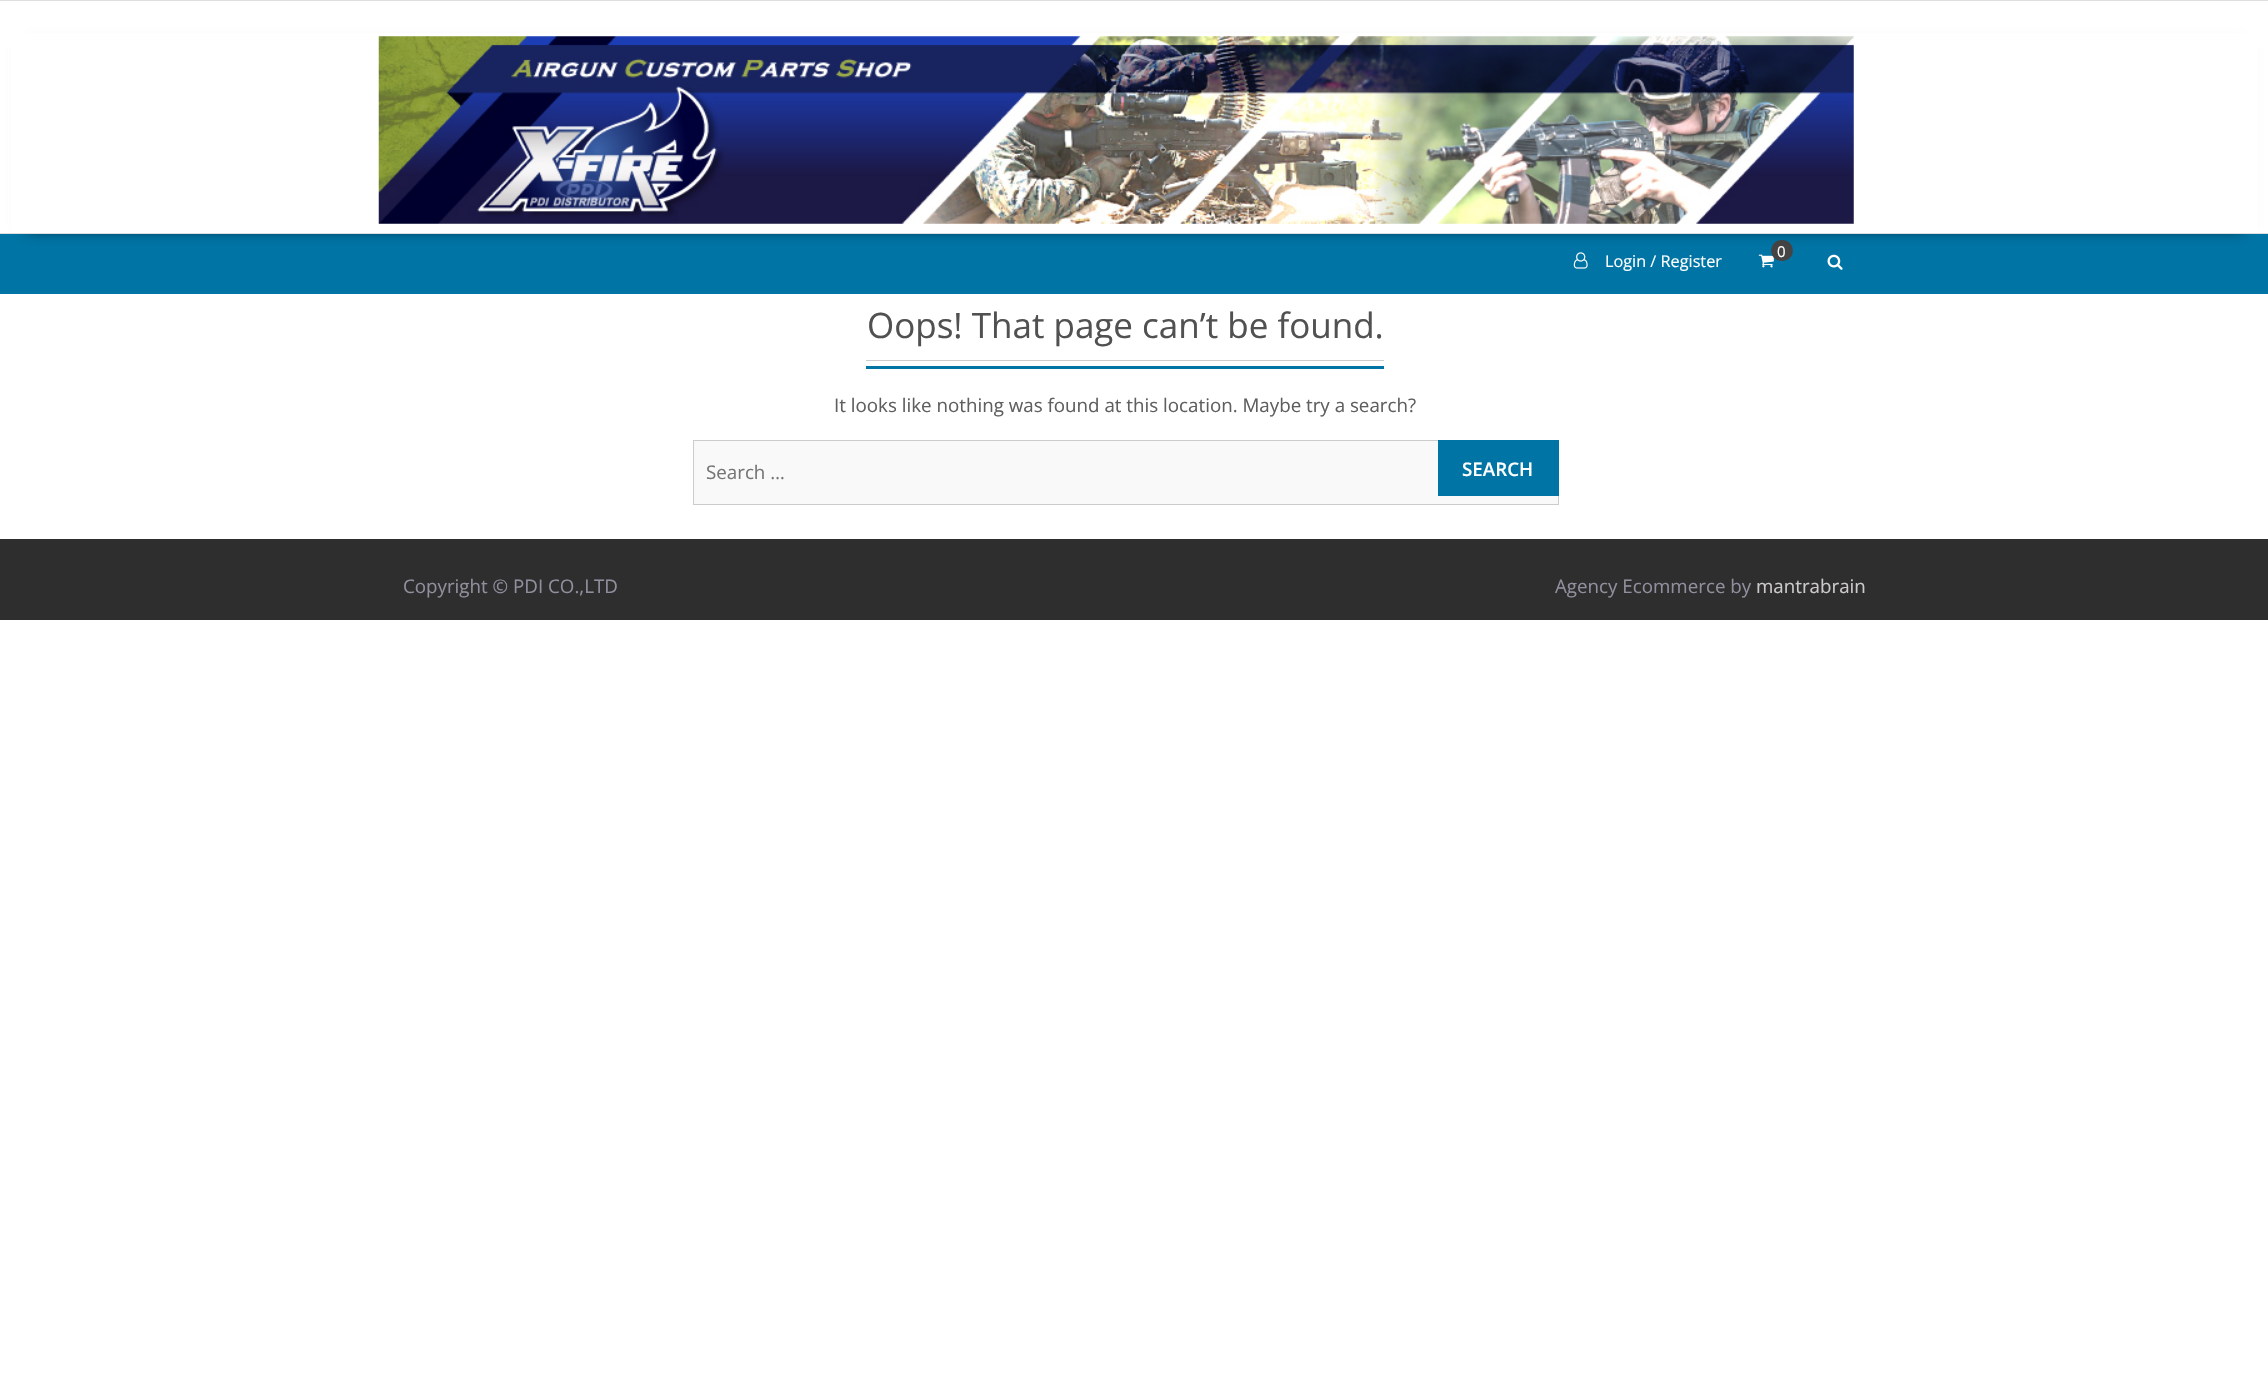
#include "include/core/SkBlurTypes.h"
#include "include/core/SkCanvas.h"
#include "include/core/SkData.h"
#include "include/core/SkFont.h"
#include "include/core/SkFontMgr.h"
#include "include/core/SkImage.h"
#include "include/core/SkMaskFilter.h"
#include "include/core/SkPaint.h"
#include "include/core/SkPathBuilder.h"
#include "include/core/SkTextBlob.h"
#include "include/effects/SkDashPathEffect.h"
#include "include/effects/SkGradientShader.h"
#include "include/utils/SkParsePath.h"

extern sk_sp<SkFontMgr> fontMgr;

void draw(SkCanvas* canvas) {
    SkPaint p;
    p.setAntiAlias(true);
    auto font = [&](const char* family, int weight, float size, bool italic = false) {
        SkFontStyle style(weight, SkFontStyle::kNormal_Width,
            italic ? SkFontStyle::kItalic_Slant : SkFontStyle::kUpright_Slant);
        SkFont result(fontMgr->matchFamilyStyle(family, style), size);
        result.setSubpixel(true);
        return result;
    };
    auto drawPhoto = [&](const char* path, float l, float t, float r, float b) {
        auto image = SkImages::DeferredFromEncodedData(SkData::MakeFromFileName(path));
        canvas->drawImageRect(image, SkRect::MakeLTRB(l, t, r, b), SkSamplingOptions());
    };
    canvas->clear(0xFFFFFFFF);
    p.setColor(0xFF0074A5);
    canvas->drawRect(SkRect::MakeLTRB(0, 234, 2268, 294), p);
    drawPhoto("media/2.png", 1758, 254, 1774, 268);
    p.setColor(0xFF444444);
    canvas->drawRoundRect(SkRect::MakeLTRB(1771, 240, 1793, 261), 10.5f, 10.5f, p);
    p.setColor(0xBF000000);
    p.setMaskFilter(SkMaskFilter::MakeBlur(kNormal_SkBlurStyle, 7));
    canvas->drawRect(SkRect::MakeLTRB(26, 48, 2243, 229), p);
    p.setMaskFilter(nullptr);
    {
        const struct { float l, t, r, b; SkColor color; } items[] = {
            {11, 33, 2258, 233, 0xFFFFFFFF},
            {0, 0, 2268, 1, 0xFFDEDEDE},
            {0, 233, 2268, 234, 0xFFDEDEDE},
        };
        for (auto [l, t, r, b, color] : items) {
            p.setColor(color);
            canvas->drawRect(SkRect::MakeLTRB(l, t, r, b), p);
        }
    }
    drawPhoto("media/1.png", 378, 36, 1854, 224);
    auto font1 = font("Open Sans", 400, 15);
    p.setColor(0xFFFFFFFF);
    canvas->drawString("0", 1777, 257, font1, p);
    drawPhoto("media/3.png", 1573, 252, 1588, 269);
    auto font2 = font("Open Sans", 400, 16.25f);
    canvas->drawString("Login / Register", 1605, 267, font2, p);
    drawPhoto("media/4.png", 1827, 254, 1843, 270);
    p.setColor(0xFFCCCCCC);
    canvas->drawRect(SkRect::MakeLTRB(866, 360, 1384, 361), p);
    auto font3 = font("Open Sans", 400, 35);
    p.setColor(0xFF515151);
    canvas->drawString("Oops! That page can’t be found.", 867, 338, font3, p);
    p.setColor(0xFF0074A5);
    canvas->drawRect(SkRect::MakeLTRB(866, 366, 1384, 369), p);
    auto font4 = font("Open Sans", 400, 18.75f);
    p.setColor(0xFF5F5F5F);
    canvas->drawString("It looks like nothing was found at this location. Maybe try a search?", 834, 412, font4, p);
    p.setColor(0xFFF9F9F9);
    canvas->drawRect(SkRect::MakeLTRB(693.5f, 440.5f, 1558.5f, 504.5f), p);
    p.setStyle(SkPaint::kStroke_Style);
    p.setStrokeWidth(1);
    p.setColor(0xFFCCCCCC);
    canvas->drawRect(SkRect::MakeLTRB(693.5f, 440.5f, 1558.5f, 504.5f), p);
    p.setStyle(SkPaint::kFill_Style);
    p.setColor(0xFF757575);
    canvas->drawString("Search …", 706, 479, font4, p);
    p.setColor(0xFF0074A5);
    canvas->drawRect(SkRect::MakeLTRB(1438, 440, 1559, 496), p);
    auto font5 = font("Open Sans", 600, 18.75f);
    p.setColor(0xFFFFFFFF);
    canvas->drawString("SEARCH", 1462, 476, font5, p);
    p.setColor(0xFF2E2E2E);
    canvas->drawRect(SkRect::MakeLTRB(0, 539, 2268, 620), p);
    p.setColor(0xFF918F9D);
    canvas->drawString("Copyright © PDI CO.,LTD", 403, 593, font4, p);
    canvas->drawString("Agency Ecommerce by", 1555, 593, font4, p);
    p.setColor(0xFFCCCACA);
    canvas->drawString("mantrabrain", 1756, 593, font4, p);
}
